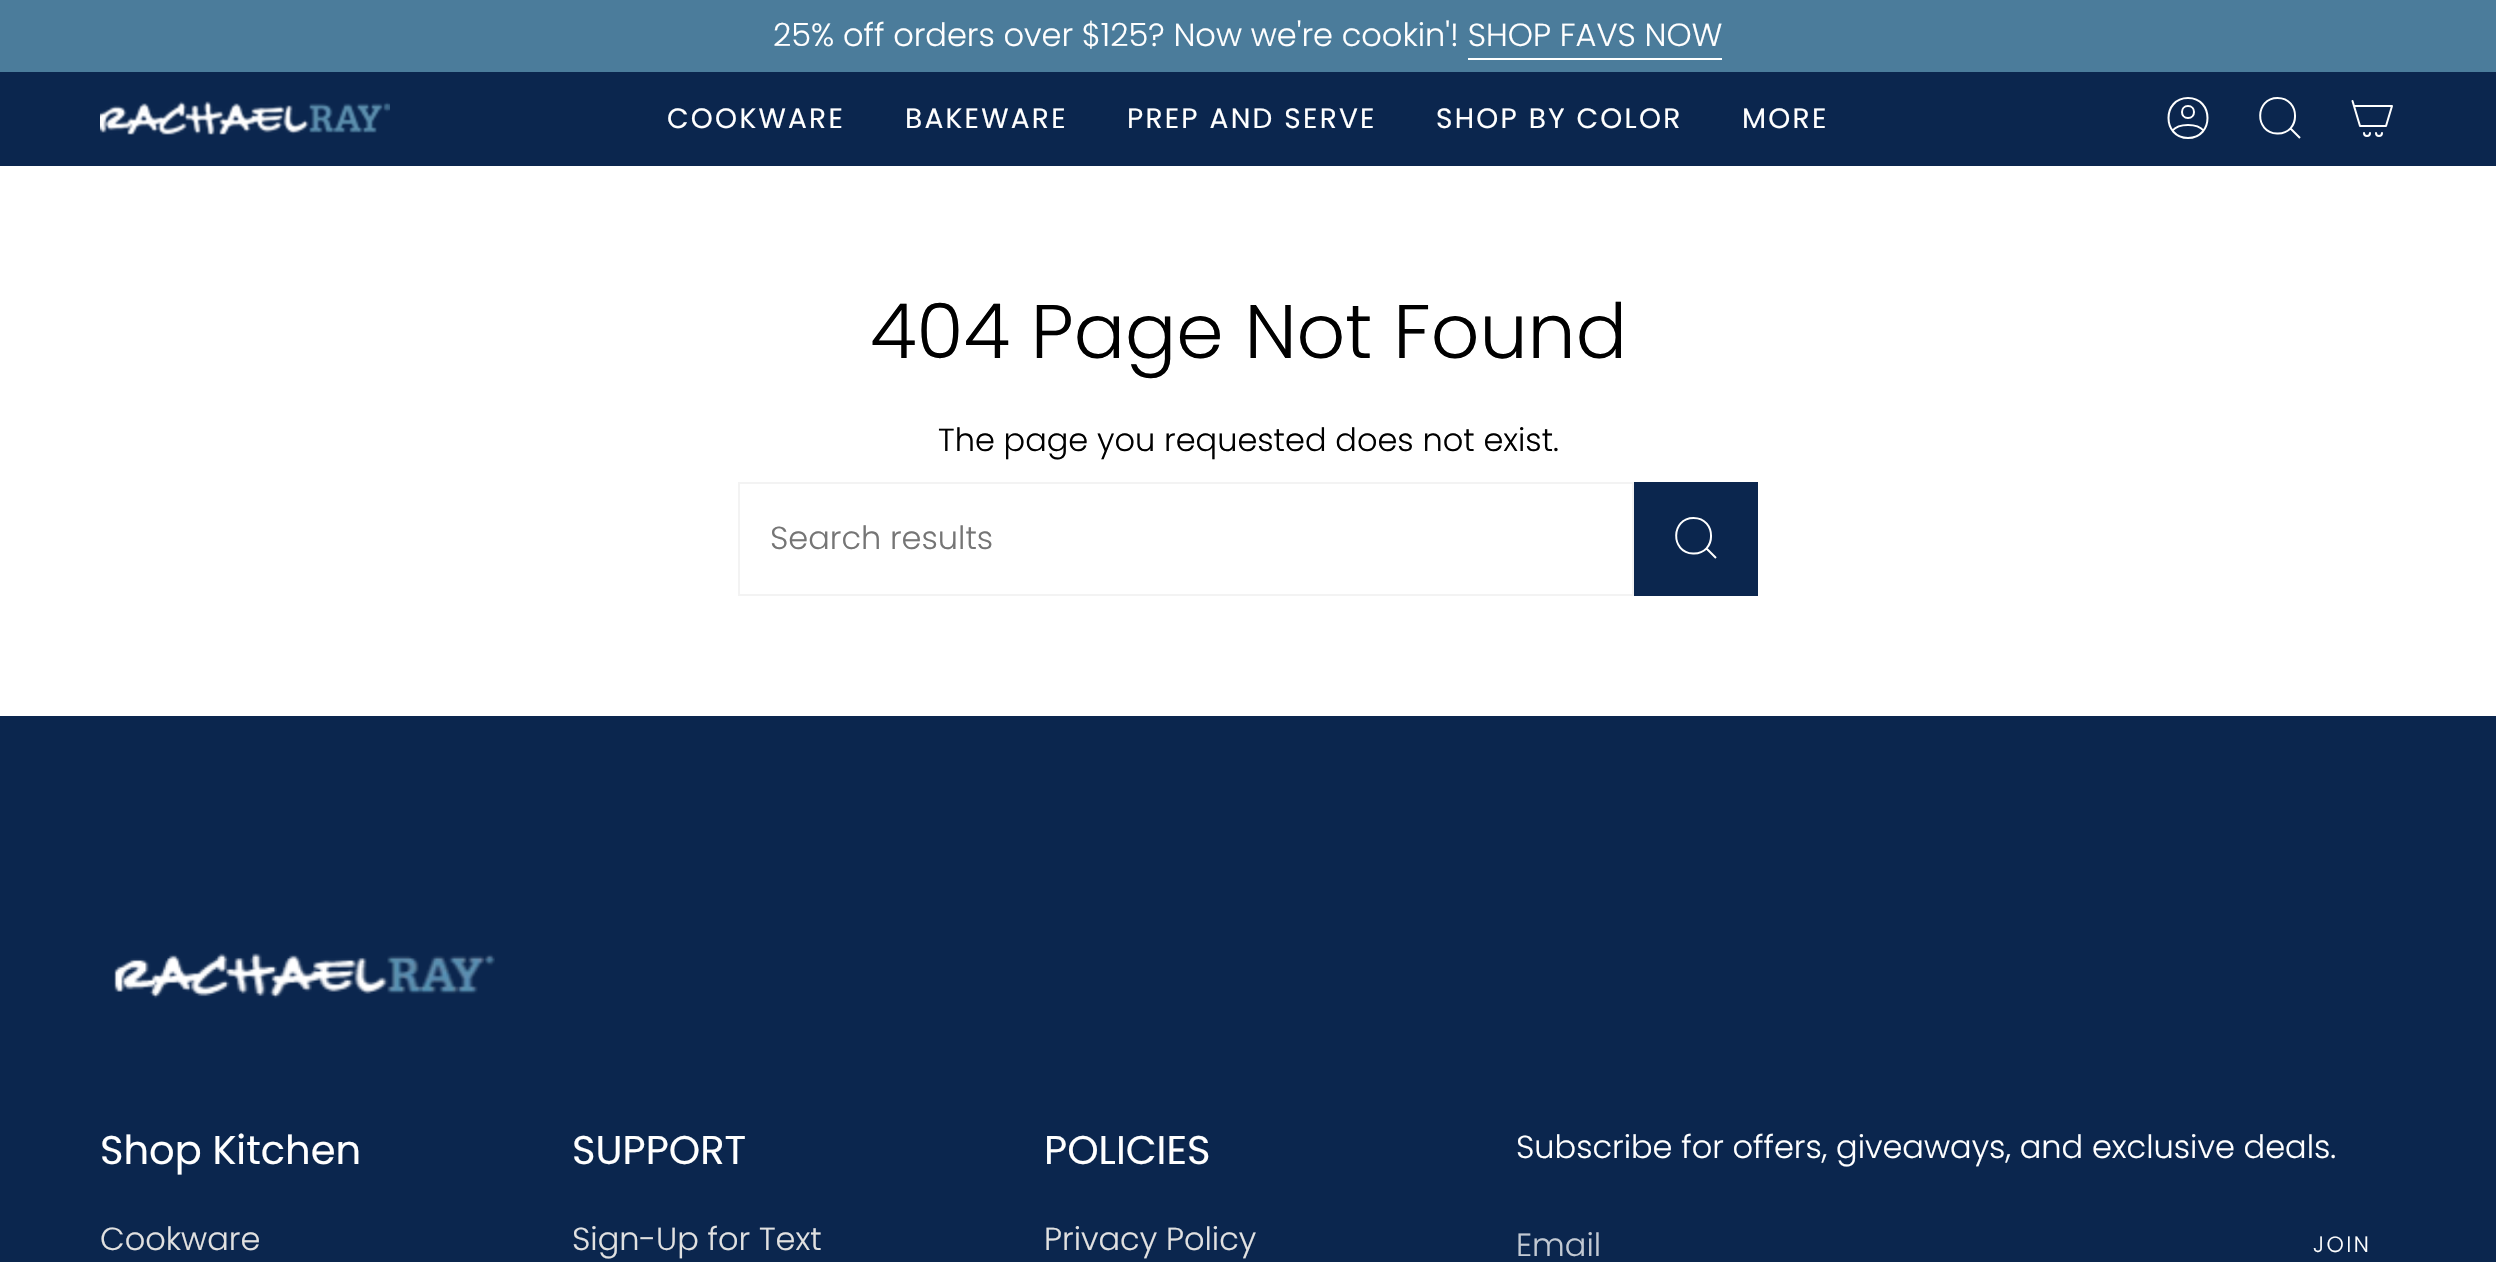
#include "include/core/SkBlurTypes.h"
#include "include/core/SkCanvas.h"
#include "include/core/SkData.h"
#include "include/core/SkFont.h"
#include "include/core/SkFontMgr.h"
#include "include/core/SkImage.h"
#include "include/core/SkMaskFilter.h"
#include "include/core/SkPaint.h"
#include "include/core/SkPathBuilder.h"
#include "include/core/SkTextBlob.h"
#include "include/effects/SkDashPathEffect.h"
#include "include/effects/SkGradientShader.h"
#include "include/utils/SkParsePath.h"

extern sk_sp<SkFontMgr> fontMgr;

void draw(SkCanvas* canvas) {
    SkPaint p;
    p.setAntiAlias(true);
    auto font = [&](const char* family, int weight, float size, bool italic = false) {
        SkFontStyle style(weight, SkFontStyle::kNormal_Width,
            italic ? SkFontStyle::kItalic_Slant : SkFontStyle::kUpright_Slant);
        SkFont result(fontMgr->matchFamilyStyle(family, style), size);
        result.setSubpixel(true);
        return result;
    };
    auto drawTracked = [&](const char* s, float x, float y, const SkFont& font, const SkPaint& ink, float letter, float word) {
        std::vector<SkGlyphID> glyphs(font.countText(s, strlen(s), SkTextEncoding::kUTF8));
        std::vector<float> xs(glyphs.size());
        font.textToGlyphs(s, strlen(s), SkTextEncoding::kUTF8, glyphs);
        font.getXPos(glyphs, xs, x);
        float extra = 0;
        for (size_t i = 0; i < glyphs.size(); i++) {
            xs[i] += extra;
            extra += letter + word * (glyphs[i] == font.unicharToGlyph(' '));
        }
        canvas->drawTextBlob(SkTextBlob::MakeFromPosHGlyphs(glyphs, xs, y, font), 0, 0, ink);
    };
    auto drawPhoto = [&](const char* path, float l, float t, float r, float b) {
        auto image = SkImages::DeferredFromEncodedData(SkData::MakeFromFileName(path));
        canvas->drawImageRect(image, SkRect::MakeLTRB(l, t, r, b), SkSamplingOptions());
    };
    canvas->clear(0xFFFFFFFF);
    p.setColor(0xFF4B7C9B);
    canvas->drawRect(SkRect::MakeLTRB(0, 0, 2496, 72), p);
    auto font1 = font("Poppins", 300, 32);
    p.setColor(0xFFFFFFFF);
    canvas->drawString("25% off orders over $125? Now we're cookin'! SHOP FAVS NOW", 773, 46, font1, p);
    canvas->drawRect(SkRect::MakeLTRB(1468, 58, 1722, 60), p);
    p.setColor(0xFF0B264E);
    canvas->drawRect(SkRect::MakeLTRB(0, 72, 2496, 166), p);
    drawPhoto("media/1.png", 100, 101, 390, 135);
    auto font2 = font("Poppins", 400, 28);
    p.setColor(0xFFFFFFFF);
    {
        const struct { const char* s; float x, y; } items[] = {
            {"COOKWARE", 667, 128},
            {"BAKEWARE", 905, 128},
            {"PREP AND SERVE", 1127, 128},
            {"SHOP BY COLOR", 1436, 128},
            {"MORE", 1742, 128},
        };
        for (auto [s, x, y] : items) {
            drawTracked(s, x, y, font2, p, 2.25f, 0);
        }
    }
    p.setStyle(SkPaint::kStroke_Style);
    p.setStrokeWidth(2);
    p.setStrokeCap(SkPaint::kRound_Cap);
    p.setStrokeJoin(SkPaint::kRound_Join);
    canvas->drawPath(SkPathBuilder().moveTo(2188, 98).cubicTo(2162, 98, 2162, 138, 2188, 138).cubicTo(2214, 138, 2214, 98, 2188, 98).close().moveTo(2172.5f, 130.5f).cubicTo(2178.5f, 123, 2197.5f, 123, 2203.5f, 130.5f).moveTo(2188, 118).cubicTo(2196, 118, 2196, 106, 2188, 106).cubicTo(2180, 106, 2180, 118, 2188, 118).close().detach(), p);
    p.setStrokeCap(SkPaint::kButt_Cap);
    p.setStrokeJoin(SkPaint::kMiter_Join);
    canvas->drawPath(SkPathBuilder().moveTo(2277.5f, 98).cubicTo(2301, 98, 2301, 134.5f, 2277, 133.5f).cubicTo(2254, 132.5f, 2255, 98, 2277.5f, 98).close().moveTo(2290, 128).lineTo(2300, 138).detach(), p);
    p.setStrokeCap(SkPaint::kRound_Cap);
    p.setStrokeJoin(SkPaint::kRound_Join);
    canvas->drawPath(SkPathBuilder().moveTo(2354, 106).lineTo(2392, 106).lineTo(2386, 126).lineTo(2360, 126).close().moveTo(2354, 106).lineTo(2352.5f, 101).moveTo(2370, 133).cubicTo(2370, 137, 2364, 137, 2364, 133).moveTo(2382, 133).cubicTo(2382, 137, 2376, 137, 2376, 133).detach(), p);
    auto font3 = font("Poppins", 300, 76);
    p.setStyle(SkPaint::kFill_Style);
    p.setColor(0xFF000000);
    canvas->drawString("404 Page Not Found", 870, 358, font3, p);
    canvas->drawString("The page you requested does not exist.", 938, 451, font1, p);
    p.setStyle(SkPaint::kStroke_Style);
    p.setStrokeCap(SkPaint::kButt_Cap);
    p.setStrokeJoin(SkPaint::kMiter_Join);
    p.setColor(0xFFF3F3F3);
    canvas->drawRect(SkRect::MakeLTRB(739, 483, 1633, 595), p);
    p.setStyle(SkPaint::kFill_Style);
    p.setColor(0xFF757575);
    canvas->drawString("Search results", 770, 549, font1, p);
    p.setColor(0xFF0B264E);
    canvas->drawRect(SkRect::MakeLTRB(1634, 482, 1758, 596), p);
    p.setStyle(SkPaint::kStroke_Style);
    p.setColor(0xFFFFFFFF);
    canvas->drawPath(SkPathBuilder().moveTo(1693.5f, 518).cubicTo(1717, 518, 1717, 554.5f, 1693, 553.5f).cubicTo(1670, 552.5f, 1671, 518, 1693.5f, 518).close().moveTo(1706, 548).lineTo(1716, 558).detach(), p);
    p.setStyle(SkPaint::kFill_Style);
    p.setColor(0xFF0B264E);
    canvas->drawRect(SkRect::MakeLTRB(0, 716, 2496, 1262), p);
    drawPhoto("media/2.png", 114, 953, 495, 999);
    auto font4 = font("Poppins", 400, 40);
    p.setColor(0xFFFFFFFF);
    canvas->drawString("Shop Kitchen", 100, 1164, font4, p);
    p.setColor(0xFFE1E1E1);
    canvas->drawString("Cookware", 100, 1250, font1, p);
    p.setColor(0xFFFFFFFF);
    canvas->drawString("SUPPORT", 572, 1164, font4, p);
    p.setColor(0xFFE1E1E1);
    canvas->drawString("Sign-Up for Text", 572, 1250, font1, p);
    p.setColor(0xFFFFFFFF);
    canvas->drawString("POLICIES", 1044, 1164, font4, p);
    p.setColor(0xFFE1E1E1);
    canvas->drawString("Privacy Policy", 1044, 1250, font1, p);
    p.setColor(0xFFFFFFFF);
    canvas->drawString("Subscribe for offers, giveaways, and exclusive deals.", 1516, 1158, font1, p);
    p.setColor(0xFFC2C9D3);
    canvas->drawString("Email", 1516, 1256, font1, p);
    auto font5 = font("Poppins", 300, 22);
    p.setColor(0xFFFFFFFF);
    drawTracked("JOIN", 2313, 1252, font5, p, 2.5f, 0);
}
